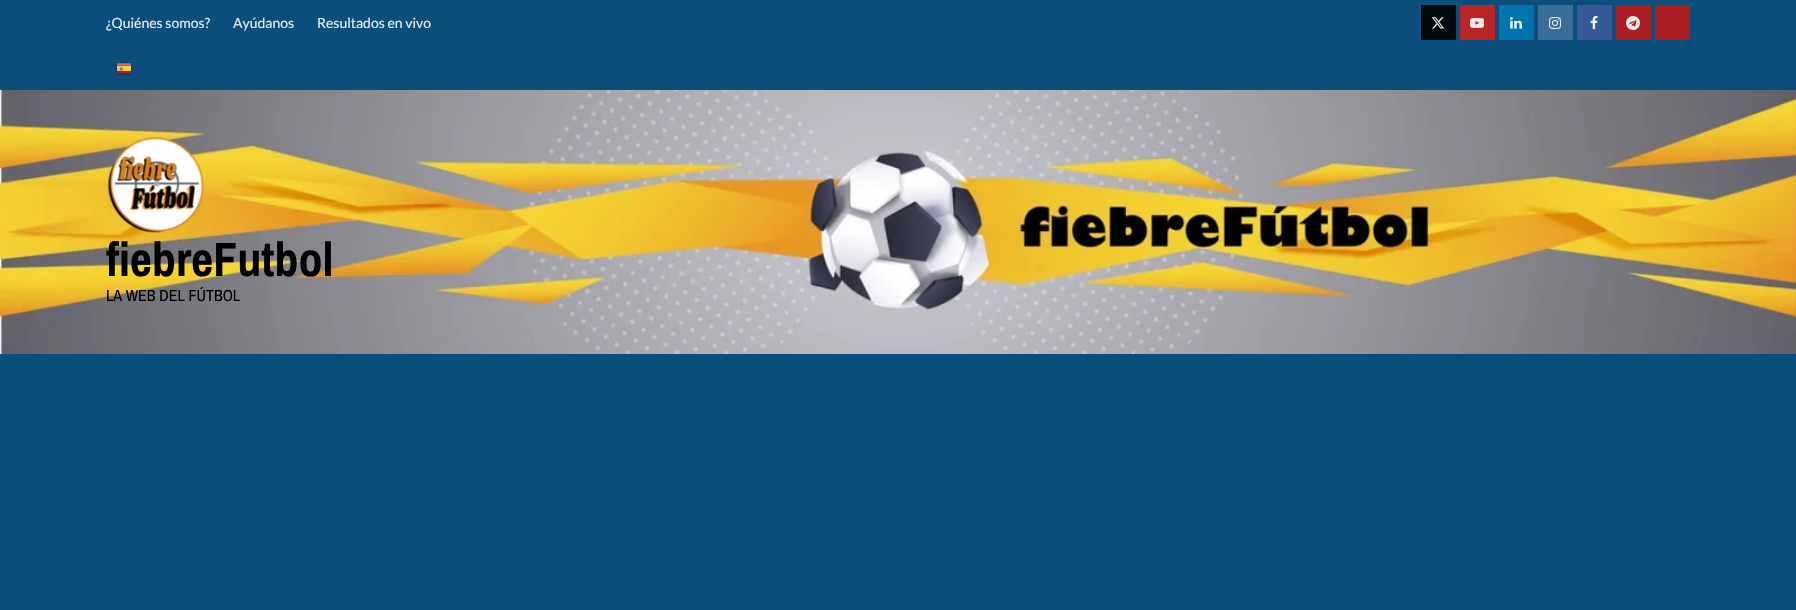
#include "include/core/SkBlurTypes.h"
#include "include/core/SkCanvas.h"
#include "include/core/SkData.h"
#include "include/core/SkFont.h"
#include "include/core/SkFontMgr.h"
#include "include/core/SkImage.h"
#include "include/core/SkMaskFilter.h"
#include "include/core/SkPaint.h"
#include "include/core/SkPathBuilder.h"
#include "include/core/SkTextBlob.h"
#include "include/effects/SkDashPathEffect.h"
#include "include/effects/SkGradientShader.h"
#include "include/utils/SkParsePath.h"

extern sk_sp<SkFontMgr> fontMgr;

void draw(SkCanvas* canvas) {
    SkPaint p;
    p.setAntiAlias(true);
    auto font = [&](const char* family, int weight, float size, bool italic = false) {
        SkFontStyle style(weight, SkFontStyle::kNormal_Width,
            italic ? SkFontStyle::kItalic_Slant : SkFontStyle::kUpright_Slant);
        SkFont result(fontMgr->matchFamilyStyle(family, style), size);
        result.setSubpixel(true);
        return result;
    };
    auto drawPhoto = [&](const char* path, float l, float t, float r, float b) {
        auto image = SkImages::DeferredFromEncodedData(SkData::MakeFromFileName(path));
        canvas->drawImageRect(image, SkRect::MakeLTRB(l, t, r, b), SkSamplingOptions());
    };
    canvas->clear(0xFF0C4E7B);
    auto font1 = font("Lato", 400, 14);
    p.setColor(0xFFE7EDF2);
    {
        const struct { const char* s; float x, y; } items[] = {
            {"¿Quiénes somos?", 106, 28},
            {"Ayúdanos", 233, 28},
            {"Resultados en vivo", 317, 28},
        };
        for (auto [s, x, y] : items) {
            canvas->drawString(s, x, y, font1, p);
        }
    }
    drawPhoto("media/1.png", 116, 62, 132, 76);
    p.setColor(0xFF01080C);
    canvas->drawRect(SkRect::MakeLTRB(1421, 5, 1456, 40), p);
    drawPhoto("media/2.png", 1431, 17, 1445, 29);
    p.setColor(0xFFBA2528);
    canvas->drawRect(SkRect::MakeLTRB(1460, 5, 1495, 40), p);
    drawPhoto("media/3.png", 1470, 18, 1484, 28);
    p.setColor(0xFF0173AF);
    canvas->drawRect(SkRect::MakeLTRB(1499, 5, 1534, 40), p);
    drawPhoto("media/4.png", 1510, 17, 1522, 29);
    p.setColor(0xFF3A6E98);
    canvas->drawRect(SkRect::MakeLTRB(1538, 5, 1573, 40), p);
    drawPhoto("media/5.png", 1549, 17, 1561, 29);
    p.setColor(0xFF365896);
    canvas->drawRect(SkRect::MakeLTRB(1577, 5, 1612, 40), p);
    drawPhoto("media/6.png", 1590, 16, 1598, 29);
    p.setColor(0xFFAA1E23);
    canvas->drawRect(SkRect::MakeLTRB(1616, 5, 1651, 40), p);
    drawPhoto("media/7.png", 1626, 16, 1640, 30);
    canvas->drawRect(SkRect::MakeLTRB(1655, 5, 1690, 40), p);
    drawPhoto("media/8.png", 0, 90, 1796, 354);
    drawPhoto("media/9.png", 107, 136, 204, 233);
    auto font2 = font("Archivo Narrow", 700, 48);
    p.setColor(0xFF000000);
    canvas->drawString("fiebreFutbol", 106, 276, font2, p);
    auto font3 = font("Archivo Narrow", 400, 16);
    canvas->drawString("LA WEB DEL FÚTBOL", 106, 301, font3, p);
}
